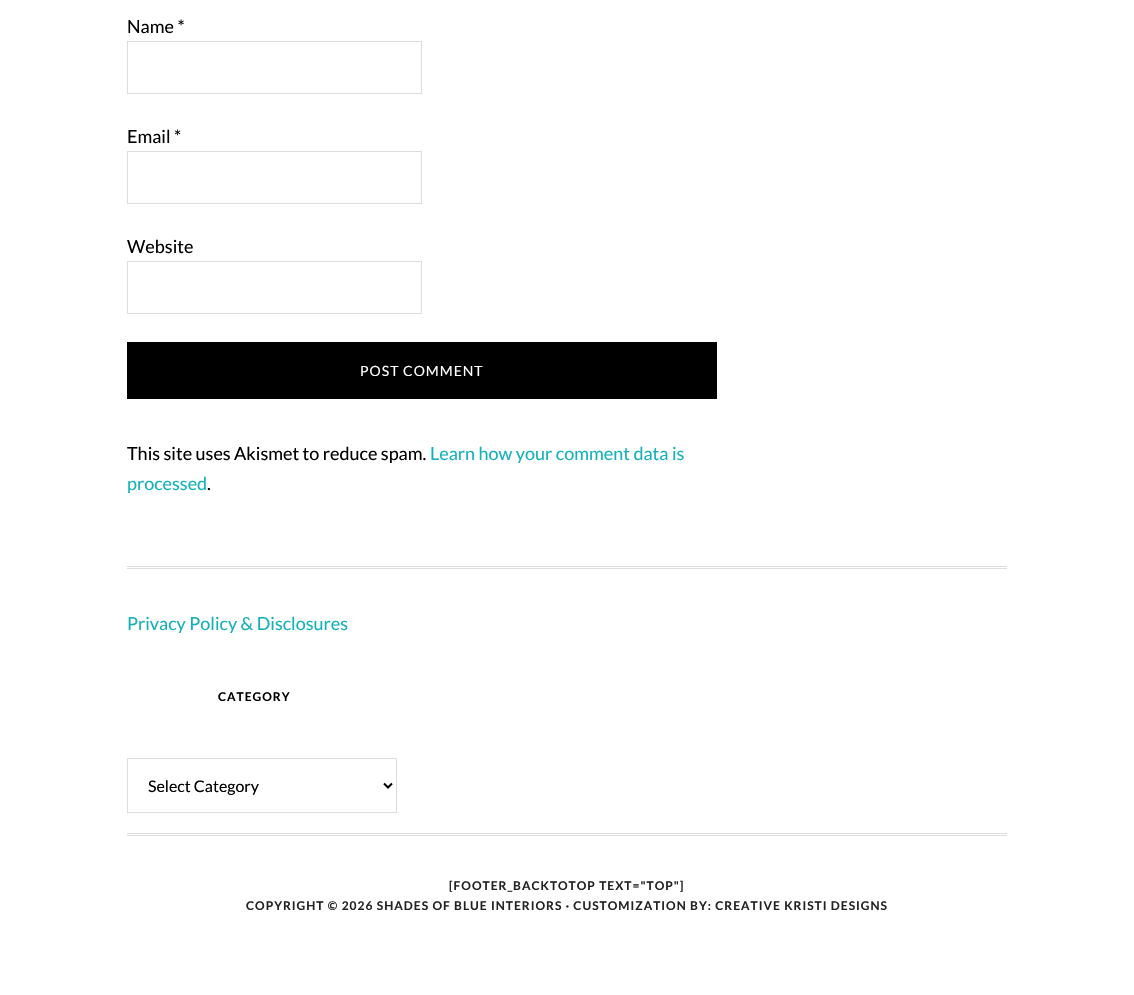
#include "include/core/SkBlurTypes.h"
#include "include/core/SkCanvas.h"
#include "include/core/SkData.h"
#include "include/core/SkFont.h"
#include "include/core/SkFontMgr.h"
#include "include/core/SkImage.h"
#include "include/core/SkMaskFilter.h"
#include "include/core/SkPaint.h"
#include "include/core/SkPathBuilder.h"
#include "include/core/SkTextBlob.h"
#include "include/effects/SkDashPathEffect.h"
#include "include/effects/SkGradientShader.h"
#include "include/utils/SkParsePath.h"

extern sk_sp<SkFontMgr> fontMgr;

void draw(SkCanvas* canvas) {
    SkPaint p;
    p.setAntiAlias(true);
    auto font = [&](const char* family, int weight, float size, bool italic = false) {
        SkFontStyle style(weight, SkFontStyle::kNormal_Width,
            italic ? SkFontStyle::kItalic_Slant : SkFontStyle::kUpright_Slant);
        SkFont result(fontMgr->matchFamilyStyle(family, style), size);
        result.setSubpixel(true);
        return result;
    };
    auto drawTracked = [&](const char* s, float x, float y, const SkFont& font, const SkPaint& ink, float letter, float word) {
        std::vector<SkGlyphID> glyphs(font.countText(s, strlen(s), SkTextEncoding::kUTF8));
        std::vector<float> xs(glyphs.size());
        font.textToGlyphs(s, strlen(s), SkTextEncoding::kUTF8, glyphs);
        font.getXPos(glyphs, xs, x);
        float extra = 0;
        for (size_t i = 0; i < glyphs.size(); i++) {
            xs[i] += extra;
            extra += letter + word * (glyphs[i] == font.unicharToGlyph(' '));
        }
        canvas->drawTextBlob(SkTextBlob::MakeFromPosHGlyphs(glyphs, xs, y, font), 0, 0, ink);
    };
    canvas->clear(0xFFFFFFFF);
    auto font1 = font("Lato", 400, 18);
    p.setColor(0xFF000000);
    canvas->drawString("Name *", 127, 33, font1, p);
    p.setStyle(SkPaint::kStroke_Style);
    p.setStrokeWidth(1);
    p.setColor(0xFFDDDDDD);
    canvas->drawRect(SkRect::MakeLTRB(127.5f, 41.5f, 421.5f, 93.5f), p);
    p.setStyle(SkPaint::kFill_Style);
    p.setColor(0xFF000000);
    canvas->drawString("Email *", 127, 143, font1, p);
    p.setStyle(SkPaint::kStroke_Style);
    p.setColor(0xFFDDDDDD);
    canvas->drawRect(SkRect::MakeLTRB(127.5f, 151.5f, 421.5f, 203.5f), p);
    p.setStyle(SkPaint::kFill_Style);
    p.setColor(0xFF000000);
    canvas->drawString("Website", 127, 253, font1, p);
    p.setStyle(SkPaint::kStroke_Style);
    p.setColor(0xFFDDDDDD);
    canvas->drawRect(SkRect::MakeLTRB(127.5f, 261.5f, 421.5f, 313.5f), p);
    p.setStyle(SkPaint::kFill_Style);
    p.setColor(0xFF000000);
    canvas->drawRect(SkRect::MakeLTRB(127, 342, 717, 399), p);
    auto font2 = font("Lato", 400, 14);
    p.setColor(0xFFFFFFFF);
    drawTracked("POST COMMENT", 360, 376, font2, p, 1, 0);
    p.setColor(0xFF000000);
    canvas->drawString("This site uses Akismet to reduce spam.", 127, 460, font1, p);
    p.setColor(0xFF13B1BA);
    canvas->drawString("Learn how your comment data is", 430, 460, font1, p);
    canvas->drawString("processed", 127, 490, font1, p);
    p.setColor(0xFF000000);
    canvas->drawString(".", 207, 490, font1, p);
    p.setColor(0xFFDDDDDD);
    canvas->drawRect(SkRect::MakeLTRB(127, 566, 1007, 567), p);
    canvas->drawRect(SkRect::MakeLTRB(127, 568, 1007, 569), p);
    p.setColor(0xFF13B1BA);
    canvas->drawString("Privacy Policy & Disclosures", 127, 630, font1, p);
    auto font3 = font("Lato", 700, 12);
    p.setColor(0xFF000000);
    drawTracked("CATEGORY", 218, 701, font3, p, 1, 0);
    p.setStyle(SkPaint::kStroke_Style);
    p.setColor(0xFFDDDDDD);
    canvas->drawRect(SkRect::MakeLTRB(127.5f, 758.5f, 396.5f, 812.5f), p);
    p.setStrokeWidth(2);
    p.setColor(0xFF000000);
    canvas->drawPath(SkPathBuilder().moveTo(384, 783.5f).lineTo(388, 787.5f).lineTo(392, 783.5f).detach(), p);
    auto font4 = font("Lato", 400, 16);
    p.setStyle(SkPaint::kFill_Style);
    canvas->drawString("Select Category", 148, 792, font4, p);
    p.setColor(0xFFDDDDDD);
    canvas->drawRect(SkRect::MakeLTRB(127, 833, 1007, 834), p);
    canvas->drawRect(SkRect::MakeLTRB(127, 835, 1007, 836), p);
    p.setColor(0xFF222222);
    drawTracked("[FOOTER_BACKTOTOP TEXT=\"TOP\"]", 449, 890, font3, p, 1, 0);
    drawTracked("COPYRIGHT © 2026 SHADES OF BLUE INTERIORS · CUSTOMIZATION BY: CREATIVE KRISTI DESIGNS", 246, 910, font3, p, 1, 0);
}
